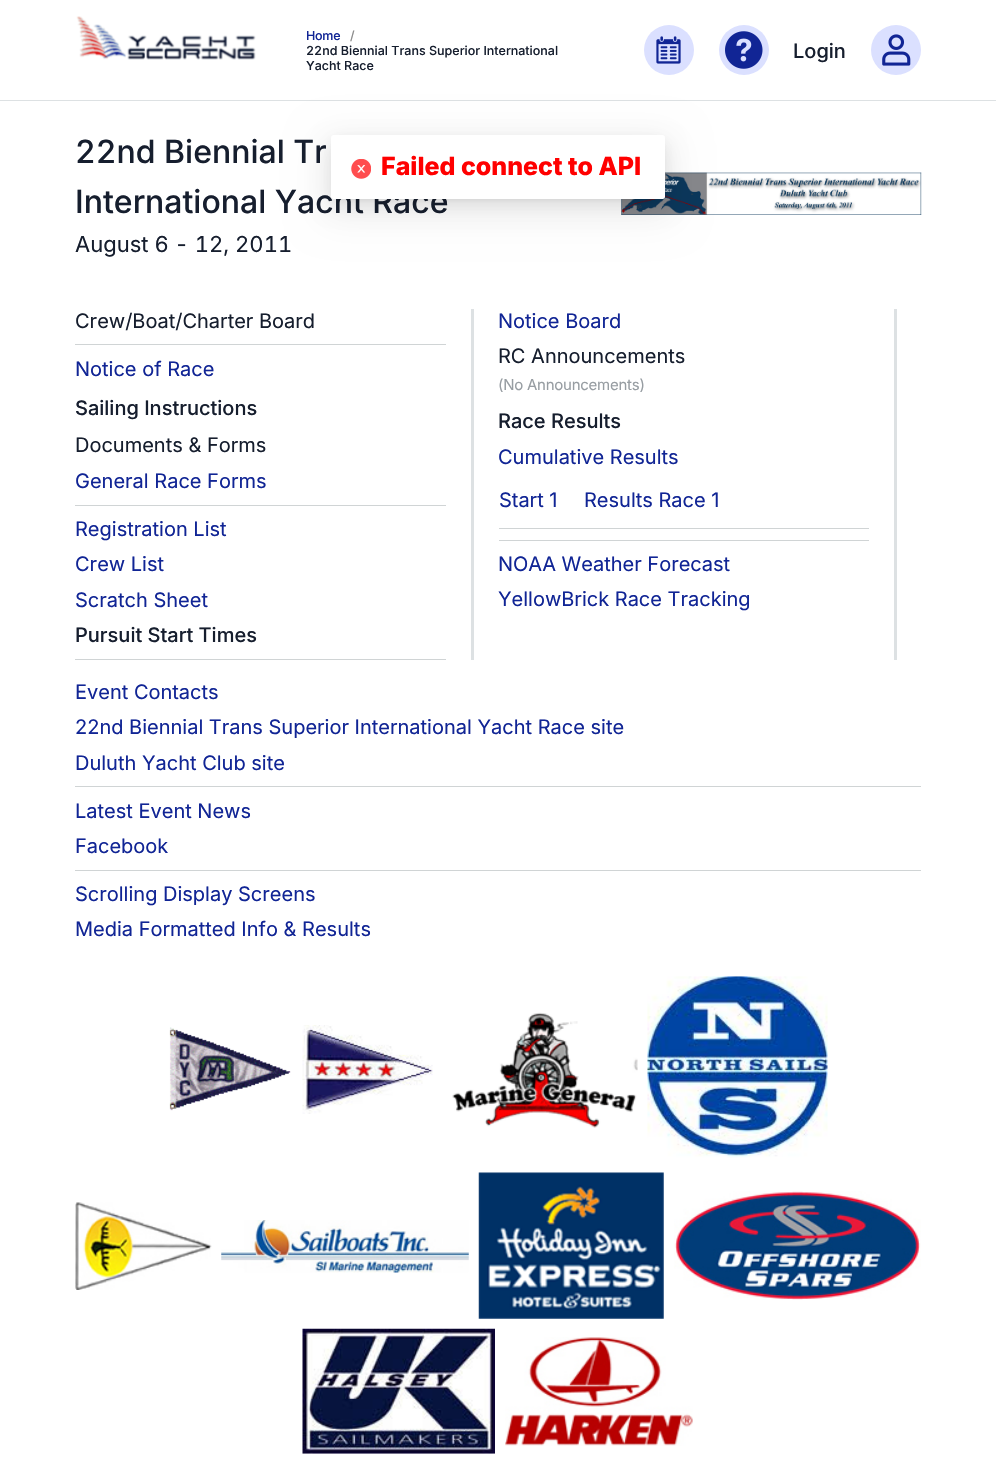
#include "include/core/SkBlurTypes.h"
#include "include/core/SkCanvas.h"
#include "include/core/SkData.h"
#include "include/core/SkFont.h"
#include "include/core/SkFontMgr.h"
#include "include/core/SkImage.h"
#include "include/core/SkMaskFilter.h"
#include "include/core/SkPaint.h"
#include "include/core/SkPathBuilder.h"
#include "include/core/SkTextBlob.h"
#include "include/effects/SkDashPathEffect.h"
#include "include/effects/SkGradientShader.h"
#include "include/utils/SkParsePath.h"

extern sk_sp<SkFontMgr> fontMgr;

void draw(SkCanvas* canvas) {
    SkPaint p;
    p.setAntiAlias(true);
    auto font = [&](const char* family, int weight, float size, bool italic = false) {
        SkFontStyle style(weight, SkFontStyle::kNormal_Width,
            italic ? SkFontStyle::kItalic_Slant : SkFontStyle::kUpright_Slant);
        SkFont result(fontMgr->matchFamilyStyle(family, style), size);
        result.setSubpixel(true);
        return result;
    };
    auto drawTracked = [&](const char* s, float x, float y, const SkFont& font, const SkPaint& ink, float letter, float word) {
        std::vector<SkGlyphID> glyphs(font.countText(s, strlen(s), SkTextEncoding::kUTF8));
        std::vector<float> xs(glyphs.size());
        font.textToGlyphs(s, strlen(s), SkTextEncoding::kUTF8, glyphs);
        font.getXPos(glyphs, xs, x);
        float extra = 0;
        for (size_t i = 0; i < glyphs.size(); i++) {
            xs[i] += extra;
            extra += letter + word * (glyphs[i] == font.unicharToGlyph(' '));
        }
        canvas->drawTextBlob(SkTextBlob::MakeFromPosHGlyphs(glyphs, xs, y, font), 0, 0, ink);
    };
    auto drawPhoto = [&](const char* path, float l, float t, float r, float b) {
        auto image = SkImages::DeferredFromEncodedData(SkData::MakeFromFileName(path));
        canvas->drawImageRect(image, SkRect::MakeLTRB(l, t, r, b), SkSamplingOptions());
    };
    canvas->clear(0xFFFFFFFF);
    p.setColor(0xFFDDE1E3);
    canvas->drawRect(SkRect::MakeLTRB(0, 100, 996, 101), p);
    drawPhoto("media/1.png", 76, 16, 256, 60);
    auto font1 = font("Inter", 500, 12.5f);
    p.setColor(0xFF112595);
    drawTracked("Home", 306, 40, font1, p, -0.25f, 0);
    p.setColor(0xFF8C8C8C);
    canvas->drawString("/", 350, 40, font1, p);
    auto font2 = font("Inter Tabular", 500, 12.5f);
    p.setColor(0xFF161E2E);
    canvas->drawString("22nd Biennial Trans Superior International", 306, 55, font2, p);
    canvas->drawString("Yacht Race", 306, 70, font1, p);
    p.setColor(0xFFDBE0FF);
    canvas->drawCircle(669, 50, 25, p);
    drawPhoto("media/2.png", 656, 36, 681, 64);
    canvas->drawCircle(744, 50, 25, p);
    drawPhoto("media/3.png", 725, 31, 763, 69);
    auto font3 = font("Inter", 500, 20);
    p.setColor(0xFF161E2E);
    canvas->drawString("Login", 793, 58, font3, p);
    p.setColor(0xFFDBE0FF);
    canvas->drawCircle(896, 50, 25, p);
    drawPhoto("media/4.png", 882, 34, 911, 66);
    auto font4 = font("Inter Tabular", 500, 32);
    p.setColor(0xFF161E2E);
    canvas->drawString("22nd Biennial Tr", 75, 163, font4, p);
    auto font5 = font("Inter", 500, 32);
    canvas->drawString("International Yacht Race", 75, 213, font5, p);
    auto font6 = font("Inter Tabular", 400, 22);
    canvas->drawString("August 6 - 12, 2011", 75, 252, font6, p);
    drawPhoto("media/5.png", 621, 172, 922, 215);
    auto font7 = font("Inter", 400, 20);
    canvas->drawString("Crew/Boat/Charter Board", 75, 328, font7, p);
    p.setColor(0xFFD0D4D5);
    canvas->drawRect(SkRect::MakeLTRB(75, 344, 446, 345), p);
    p.setColor(0xFF112595);
    canvas->drawString("Notice of Race", 75, 376, font7, p);
    p.setColor(0xFF161E2E);
    canvas->drawString("Sailing Instructions", 75, 415, font3, p);
    canvas->drawString("Documents & Forms", 75, 452, font7, p);
    p.setColor(0xFF112595);
    canvas->drawString("General Race Forms", 75, 488, font7, p);
    p.setColor(0xFFD0D4D5);
    canvas->drawRect(SkRect::MakeLTRB(75, 505, 446, 506), p);
    p.setColor(0xFF112595);
    {
        const struct { const char* s; float x, y; } items[] = {
            {"Registration List", 75, 536},
            {"Crew List", 75, 571},
            {"Scratch Sheet", 75, 607},
        };
        for (auto [s, x, y] : items) {
            canvas->drawString(s, x, y, font7, p);
        }
    }
    p.setColor(0xFF161E2E);
    canvas->drawString("Pursuit Start Times", 75, 642, font3, p);
    p.setColor(0xFFD0D4D5);
    canvas->drawRect(SkRect::MakeLTRB(75, 659, 446, 660), p);
    p.setColor(0xFFDDE1E3);
    canvas->drawRect(SkRect::MakeLTRB(471, 309, 474, 660), p);
    p.setColor(0xFF112595);
    canvas->drawString("Notice Board", 498, 328, font7, p);
    p.setColor(0xFF161E2E);
    canvas->drawString("RC Announcements", 498, 363, font7, p);
    auto font8 = font("Inter", 400, 15);
    p.setColor(0xFF979DA2);
    drawTracked("(No Announcements)", 498, 390, font8, p, -0.25f, 0);
    p.setColor(0xFF161E2E);
    canvas->drawString("Race Results", 498, 428, font3, p);
    p.setColor(0xFF112595);
    {
        const struct { const char* s; float x, y; } items[] = {
            {"Cumulative Results", 498, 464},
            {"Start 1", 499, 507},
            {"Results Race 1", 584, 507},
        };
        for (auto [s, x, y] : items) {
            canvas->drawString(s, x, y, font7, p);
        }
    }
    p.setColor(0xFFD0D4D5);
    canvas->drawRect(SkRect::MakeLTRB(499, 528, 869, 529), p);
    canvas->drawRect(SkRect::MakeLTRB(499, 540, 869, 541), p);
    p.setColor(0xFF112595);
    canvas->drawString("NOAA Weather Forecast", 498, 571, font7, p);
    canvas->drawString("YellowBrick Race Tracking", 498, 606, font7, p);
    p.setColor(0xFFDDE1E3);
    canvas->drawRect(SkRect::MakeLTRB(894, 309, 897, 660), p);
    p.setColor(0xFF112595);
    {
        const struct { const char* s; float x, y; } items[] = {
            {"Event Contacts", 75, 699},
            {"22nd Biennial Trans Superior International Yacht Race site", 75, 734},
            {"Duluth Yacht Club site", 75, 770},
        };
        for (auto [s, x, y] : items) {
            canvas->drawString(s, x, y, font7, p);
        }
    }
    p.setColor(0xFFD0D4D5);
    canvas->drawRect(SkRect::MakeLTRB(75, 786, 921, 787), p);
    p.setColor(0xFF112595);
    canvas->drawString("Latest Event News", 75, 818, font7, p);
    canvas->drawString("Facebook", 75, 853, font7, p);
    p.setColor(0xFFD0D4D5);
    canvas->drawRect(SkRect::MakeLTRB(75, 870, 921, 871), p);
    p.setColor(0xFF112595);
    canvas->drawString("Scrolling Display Screens", 75, 901, font7, p);
    canvas->drawString("Media Formatted Info & Results", 75, 936, font7, p);
    drawPhoto("media/6.png", 169, 1027, 291, 1111);
    drawPhoto("media/7.png", 302, 1025, 433, 1114);
    drawPhoto("media/8.png", 452, 1012, 638, 1128);
    drawPhoto("media/9.png", 647, 976, 828, 1158);
    drawPhoto("media/10.png", 75, 1202, 212, 1290);
    drawPhoto("media/11.png", 221, 1220, 469, 1273);
    drawPhoto("media/12.png", 478, 1172, 664, 1319);
    drawPhoto("media/13.png", 674, 1191, 921, 1300);
    drawPhoto("media/14.png", 302, 1328, 495, 1454);
    drawPhoto("media/15.png", 505, 1337, 693, 1446);
    p.setColor(0x0D000000);
    p.setMaskFilter(SkMaskFilter::MakeBlur(kNormal_SkBlurStyle, 17.5f));
    canvas->drawRoundRect(SkRect::MakeLTRB(321, 136, 675, 220), 13, 13, p);
    p.setMaskFilter(nullptr);
    p.setColor(0x14000000);
    p.setMaskFilter(SkMaskFilter::MakeBlur(kNormal_SkBlurStyle, 10));
    canvas->drawRoundRect(SkRect::MakeLTRB(331, 143, 665, 206), 2.5f, 2.5f, p);
    p.setMaskFilter(nullptr);
    p.setColor(0x1F000000);
    p.setMaskFilter(SkMaskFilter::MakeBlur(kNormal_SkBlurStyle, 4));
    canvas->drawRect(SkRect::MakeLTRB(336, 144, 660, 198), p);
    p.setMaskFilter(nullptr);
    p.setColor(0xFFFFFFFF);
    canvas->drawRoundRect(SkRect::MakeLTRB(331, 135, 665, 199), 2.5f, 2.5f, p);
    drawPhoto("media/16.png", 351, 159, 371, 179);
    auto font9 = font("Inter", 800, 25);
    p.setColor(0xFFFF0000);
    canvas->drawString("Failed connect to API", 381, 175, font9, p);
}
